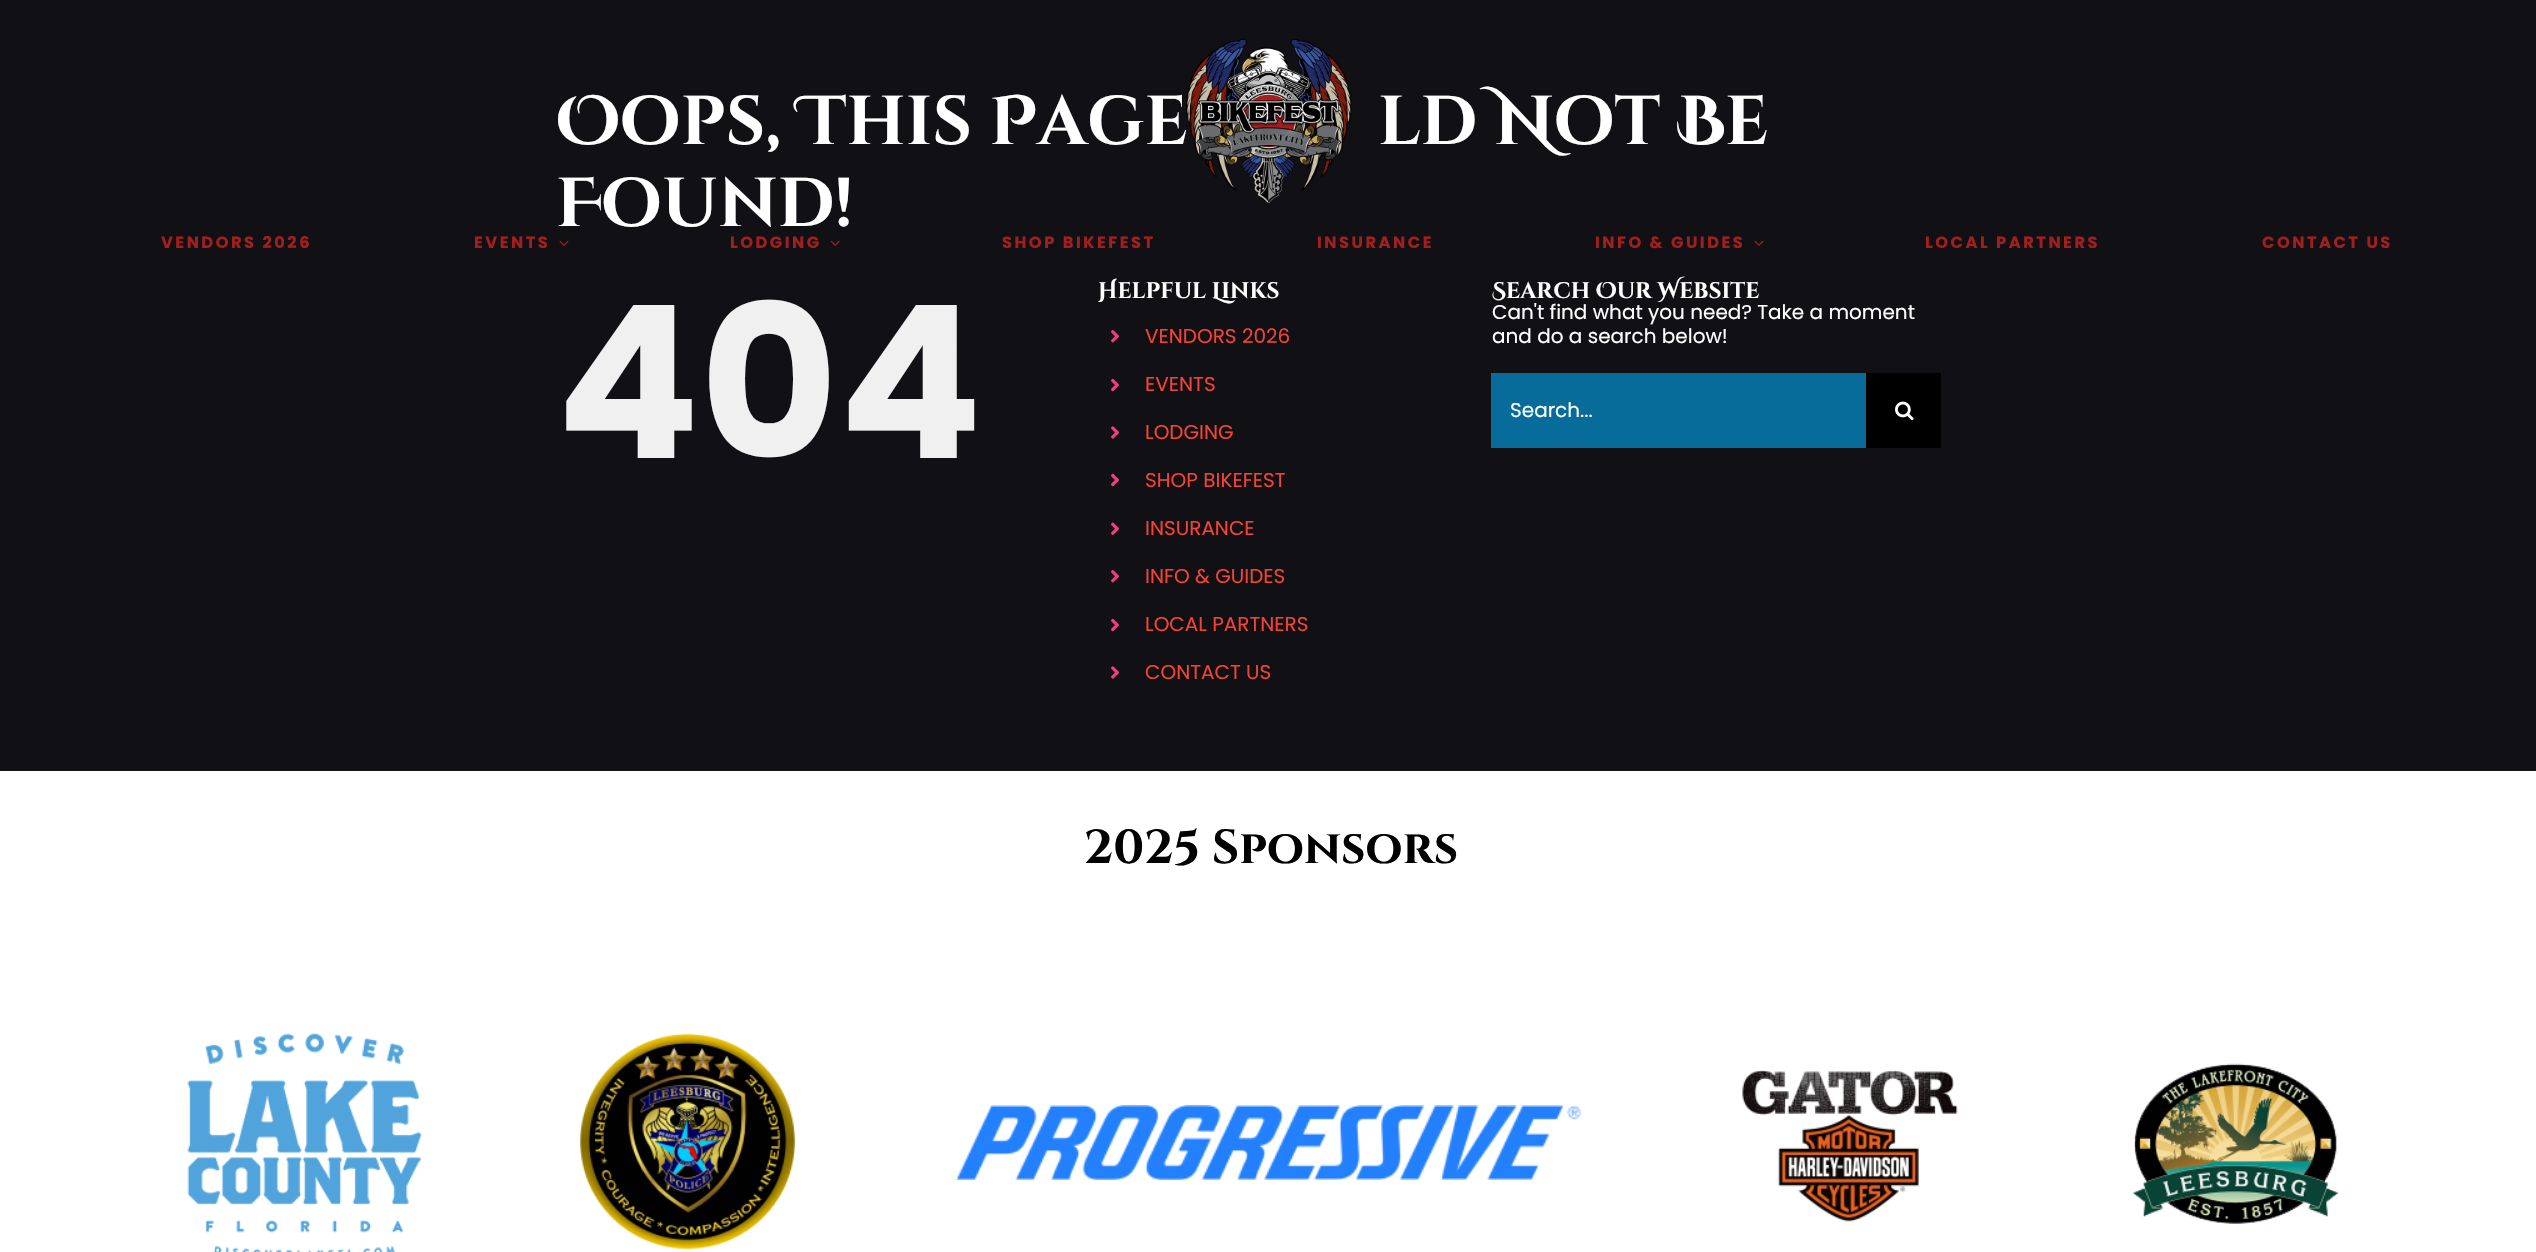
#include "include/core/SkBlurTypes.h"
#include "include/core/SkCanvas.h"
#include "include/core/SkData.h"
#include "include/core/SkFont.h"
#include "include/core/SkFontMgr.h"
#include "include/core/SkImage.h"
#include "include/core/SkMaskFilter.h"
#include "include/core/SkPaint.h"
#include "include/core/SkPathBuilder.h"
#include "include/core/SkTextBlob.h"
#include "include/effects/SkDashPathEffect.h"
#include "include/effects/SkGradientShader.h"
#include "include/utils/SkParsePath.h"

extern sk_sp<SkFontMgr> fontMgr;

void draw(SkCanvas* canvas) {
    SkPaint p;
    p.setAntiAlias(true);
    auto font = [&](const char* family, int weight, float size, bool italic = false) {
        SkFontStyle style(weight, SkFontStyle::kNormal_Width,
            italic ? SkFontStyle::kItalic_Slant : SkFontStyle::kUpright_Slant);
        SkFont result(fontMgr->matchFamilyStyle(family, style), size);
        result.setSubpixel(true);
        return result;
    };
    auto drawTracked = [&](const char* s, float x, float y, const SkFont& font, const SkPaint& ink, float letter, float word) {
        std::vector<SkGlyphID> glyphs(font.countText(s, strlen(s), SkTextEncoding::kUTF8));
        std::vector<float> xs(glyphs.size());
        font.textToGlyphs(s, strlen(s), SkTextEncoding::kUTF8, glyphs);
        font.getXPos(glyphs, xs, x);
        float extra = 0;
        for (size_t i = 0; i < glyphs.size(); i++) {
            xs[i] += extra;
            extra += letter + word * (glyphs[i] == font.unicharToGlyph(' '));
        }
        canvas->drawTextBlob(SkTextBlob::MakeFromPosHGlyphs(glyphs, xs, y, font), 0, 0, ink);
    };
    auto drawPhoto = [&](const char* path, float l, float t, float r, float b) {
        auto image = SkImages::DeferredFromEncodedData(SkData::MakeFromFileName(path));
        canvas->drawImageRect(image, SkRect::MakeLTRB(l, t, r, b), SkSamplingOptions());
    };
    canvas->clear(0xFF101015);
    auto font1 = font("Cinzel Decorative", 700, 68.75f);
    p.setColor(0xFFFFFFFF);
    {
        const struct { const char* s; float x, y; } items[] = {
            {"Oops, This Page", 556, 144},
            {"ld Not Be", 1378, 144},
            {"Found!", 556, 226},
        };
        for (auto [s, x, y] : items) {
            canvas->drawString(s, x, y, font1, p);
        }
    }
    auto font2 = font("Poppins", 700, 212.5f);
    p.setColor(0xFFF0F0F0);
    canvas->drawString("404", 556, 458, font2, p);
    auto font3 = font("Cinzel Decorative", 700, 22.5f);
    p.setColor(0xFFFFFFFF);
    canvas->drawString("Helpful Links", 1098, 298, font3, p);
    drawPhoto("media/1.png", 1111, 330, 1119, 343);
    auto font4 = font("Poppins", 400, 20);
    p.setColor(0xFFF44336);
    canvas->drawString("VENDORS 2026", 1145, 343, font4, p);
    drawPhoto("media/2.png", 1111, 378, 1119, 392);
    canvas->drawString("EVENTS", 1145, 391, font4, p);
    drawPhoto("media/3.png", 1111, 426, 1119, 439);
    canvas->drawString("LODGING", 1145, 439, font4, p);
    drawPhoto("media/2.png", 1111, 473, 1119, 487);
    canvas->drawString("SHOP BIKEFEST", 1145, 487, font4, p);
    drawPhoto("media/4.png", 1111, 522, 1119, 535);
    canvas->drawString("INSURANCE", 1145, 535, font4, p);
    drawPhoto("media/1.png", 1111, 570, 1119, 583);
    canvas->drawString("INFO & GUIDES", 1145, 583, font4, p);
    drawPhoto("media/2.png", 1111, 618, 1119, 632);
    canvas->drawString("LOCAL PARTNERS", 1145, 631, font4, p);
    drawPhoto("media/3.png", 1111, 666, 1119, 679);
    canvas->drawString("CONTACT US", 1145, 679, font4, p);
    p.setColor(0xFFFFFFFF);
    canvas->drawString("Search Our Website", 1492, 298, font3, p);
    canvas->drawString("Can't find what you need? Take a moment", 1492, 319, font4, p);
    canvas->drawString("and do a search below!", 1492, 343, font4, p);
    p.setColor(0xFF086C9B);
    canvas->drawRect(SkRect::MakeLTRB(1491, 373, 1866, 448), p);
    p.setColor(0xFFFFFFFF);
    canvas->drawString("Search...", 1510, 417, font4, p);
    p.setColor(0xFF000000);
    canvas->drawRect(SkRect::MakeLTRB(1866, 373, 1941, 448), p);
    drawPhoto("media/5.png", 1895, 401, 1914, 421);
    drawPhoto("media/6.png", 1186, 38, 1352, 204);
    auto font5 = font("Poppins", 700, 16.25f);
    p.setColor(0xFFA51E1E);
    drawTracked("VENDORS 2026", 161, 248, font5, p, 2.5f, 0);
    drawTracked("EVENTS", 474, 248, font5, p, 2.5f, 0);
    drawPhoto("media/7.png", 559, 240, 569, 246);
    drawTracked("LODGING", 730, 248, font5, p, 2.5f, 0);
    drawPhoto("media/8.png", 830, 240, 840, 246);
    {
        const struct { const char* s; float x, y; } items[] = {
            {"SHOP BIKEFEST", 1002, 248},
            {"INSURANCE", 1317, 248},
            {"INFO & GUIDES", 1595, 248},
        };
        for (auto [s, x, y] : items) {
            drawTracked(s, x, y, font5, p, 2.5f, 0);
        }
    }
    drawPhoto("media/7.png", 1754, 240, 1764, 246);
    drawTracked("LOCAL PARTNERS", 1925, 248, font5, p, 2.5f, 0);
    drawTracked("CONTACT US", 2262, 248, font5, p, 2.5f, 0);
    p.setColor(0xFFFFFFFF);
    canvas->drawRect(SkRect::MakeLTRB(0, 771, 2536, 1252), p);
    auto font6 = font("Cinzel", 700, 47.5f);
    p.setColor(0xFF000000);
    canvas->drawString("2025 Sponsors", 1084, 863, font6, p);
    drawPhoto("media/9.png", 187, 1033, 422, 1252);
    drawPhoto("media/10.png", 579, 1033, 796, 1249);
    drawPhoto("media/11.png", 956, 1105, 1581, 1180);
    drawPhoto("media/12.png", 1742, 1070, 1958, 1222);
    drawPhoto("media/13.png", 2132, 1063, 2339, 1224);
}
